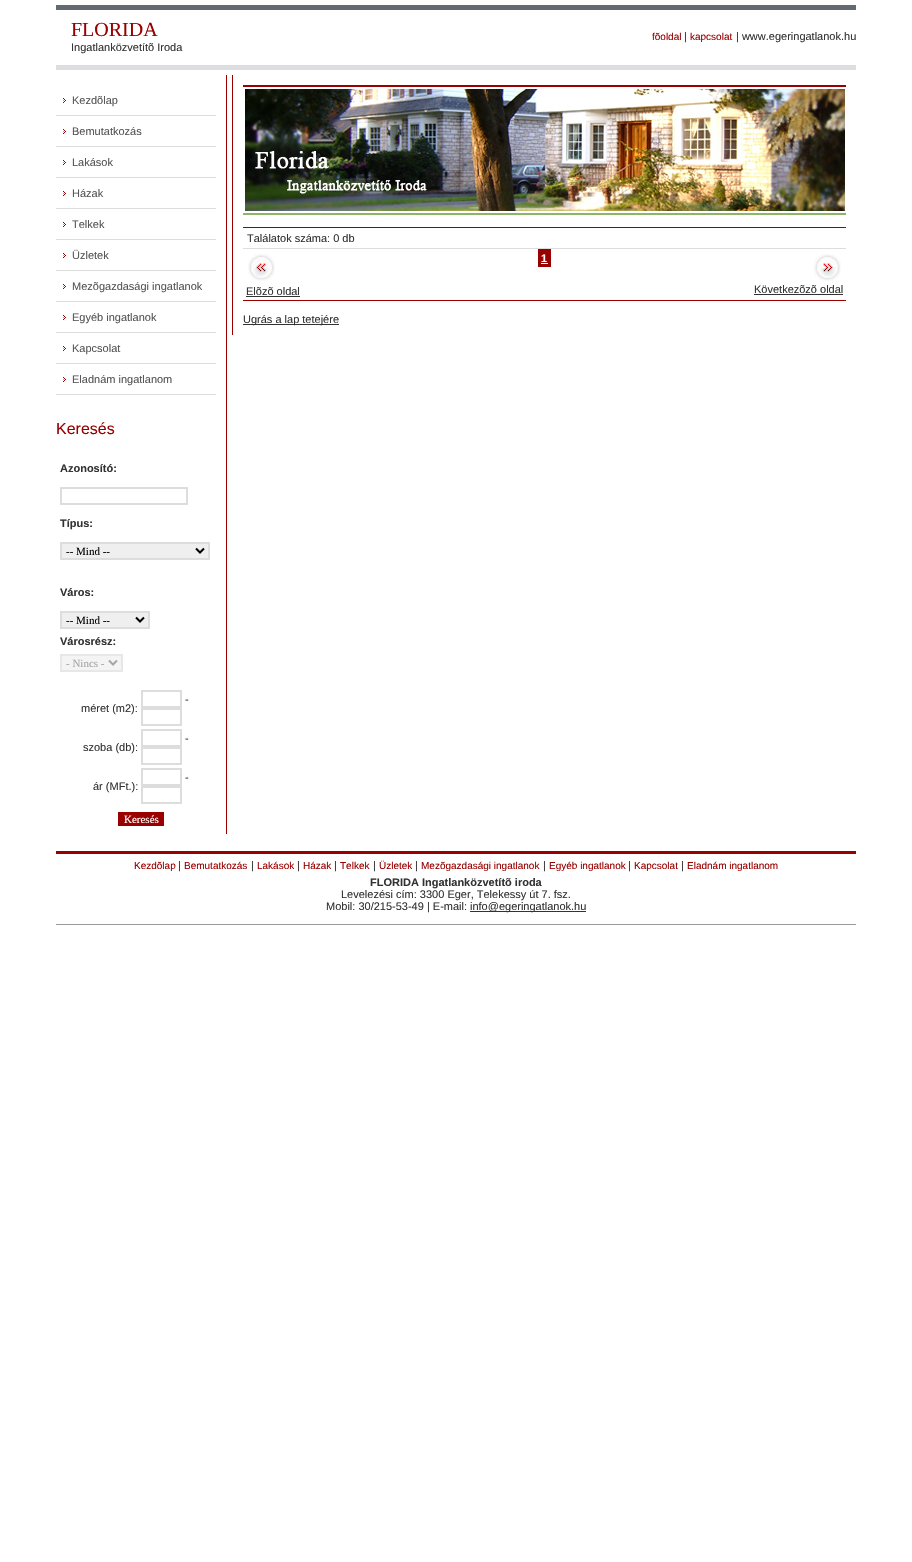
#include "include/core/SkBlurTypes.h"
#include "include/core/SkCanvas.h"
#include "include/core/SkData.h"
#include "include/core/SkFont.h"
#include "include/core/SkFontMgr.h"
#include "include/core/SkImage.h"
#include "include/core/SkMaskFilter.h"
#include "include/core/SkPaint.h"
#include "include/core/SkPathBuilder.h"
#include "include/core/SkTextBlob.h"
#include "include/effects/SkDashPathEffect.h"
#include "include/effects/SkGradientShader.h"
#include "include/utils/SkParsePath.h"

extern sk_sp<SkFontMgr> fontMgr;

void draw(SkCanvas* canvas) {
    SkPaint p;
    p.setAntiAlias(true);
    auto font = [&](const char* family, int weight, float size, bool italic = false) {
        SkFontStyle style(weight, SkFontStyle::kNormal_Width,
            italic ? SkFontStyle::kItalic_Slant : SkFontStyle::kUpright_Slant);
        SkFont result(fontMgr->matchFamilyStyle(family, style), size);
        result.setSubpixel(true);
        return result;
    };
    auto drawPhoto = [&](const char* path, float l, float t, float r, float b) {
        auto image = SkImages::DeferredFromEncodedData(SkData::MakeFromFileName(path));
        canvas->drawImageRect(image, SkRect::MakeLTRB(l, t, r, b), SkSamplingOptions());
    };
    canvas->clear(0xFFFFFFFF);
    p.setColor(0xFF656A72);
    canvas->drawRect(SkRect::MakeLTRB(56, 5, 856, 10), p);
    p.setColor(0xFFDCDEE2);
    canvas->drawRect(SkRect::MakeLTRB(56, 65, 856, 70), p);
    auto font1 = font("Liberation Serif", 400, 20);
    p.setColor(0xFF990000);
    canvas->drawString("FLORIDA", 71, 36, font1, p);
    auto font2 = font("Liberation Sans", 400, 11);
    p.setColor(0xFF333333);
    canvas->drawString("Ingatlanközvetítõ Iroda", 71, 51, font2, p);
    auto font3 = font("Liberation Sans", 400, 10);
    p.setColor(0xFF990000);
    canvas->drawString("fõoldal", 652, 40, font3, p);
    p.setColor(0xFF333333);
    canvas->drawString("|", 684, 40, font2, p);
    p.setColor(0xFF990000);
    canvas->drawString("kapcsolat", 690, 40, font3, p);
    p.setColor(0xFF333333);
    canvas->drawString("| www.egeringatlanok.hu", 736, 40, font2, p);
    p.setColor(0xFF990000);
    canvas->drawRect(SkRect::MakeLTRB(226, 75, 227, 834), p);
    drawPhoto("media/1.png", 63, 98, 66, 103);
    p.setColor(0xFFDDDDDD);
    canvas->drawRect(SkRect::MakeLTRB(56, 115, 216, 116), p);
    p.setColor(0xFF555555);
    canvas->drawString("Kezdõlap", 72, 104, font2, p);
    drawPhoto("media/1.png", 63, 129, 66, 134);
    p.setColor(0xFFDDDDDD);
    canvas->drawRect(SkRect::MakeLTRB(56, 146, 216, 147), p);
    p.setColor(0xFF555555);
    canvas->drawString("Bemutatkozás", 72, 135, font2, p);
    drawPhoto("media/1.png", 63, 160, 66, 165);
    p.setColor(0xFFDDDDDD);
    canvas->drawRect(SkRect::MakeLTRB(56, 177, 216, 178), p);
    p.setColor(0xFF555555);
    canvas->drawString("Lakások", 72, 166, font2, p);
    drawPhoto("media/1.png", 63, 191, 66, 196);
    p.setColor(0xFFDDDDDD);
    canvas->drawRect(SkRect::MakeLTRB(56, 208, 216, 209), p);
    p.setColor(0xFF555555);
    canvas->drawString("Házak", 72, 197, font2, p);
    drawPhoto("media/1.png", 63, 222, 66, 227);
    p.setColor(0xFFDDDDDD);
    canvas->drawRect(SkRect::MakeLTRB(56, 239, 216, 240), p);
    p.setColor(0xFF555555);
    canvas->drawString("Telkek", 72, 228, font2, p);
    drawPhoto("media/1.png", 63, 253, 66, 258);
    p.setColor(0xFFDDDDDD);
    canvas->drawRect(SkRect::MakeLTRB(56, 270, 216, 271), p);
    p.setColor(0xFF555555);
    canvas->drawString("Üzletek", 72, 259, font2, p);
    drawPhoto("media/1.png", 63, 284, 66, 289);
    p.setColor(0xFFDDDDDD);
    canvas->drawRect(SkRect::MakeLTRB(56, 301, 216, 302), p);
    p.setColor(0xFF555555);
    canvas->drawString("Mezõgazdasági ingatlanok", 72, 290, font2, p);
    drawPhoto("media/1.png", 63, 315, 66, 320);
    p.setColor(0xFFDDDDDD);
    canvas->drawRect(SkRect::MakeLTRB(56, 332, 216, 333), p);
    p.setColor(0xFF555555);
    canvas->drawString("Egyéb ingatlanok", 72, 321, font2, p);
    drawPhoto("media/1.png", 63, 346, 66, 351);
    p.setColor(0xFFDDDDDD);
    canvas->drawRect(SkRect::MakeLTRB(56, 363, 216, 364), p);
    p.setColor(0xFF555555);
    canvas->drawString("Kapcsolat", 72, 352, font2, p);
    drawPhoto("media/1.png", 63, 377, 66, 382);
    p.setColor(0xFFDDDDDD);
    canvas->drawRect(SkRect::MakeLTRB(56, 394, 216, 395), p);
    p.setColor(0xFF555555);
    canvas->drawString("Eladnám ingatlanom", 72, 383, font2, p);
    auto font4 = font("Liberation Sans", 400, 16);
    p.setColor(0xFF990000);
    canvas->drawString("Keresés", 56, 434, font4, p);
    auto font5 = font("Liberation Sans", 700, 11);
    p.setColor(0xFF333333);
    canvas->drawString("Azonosító:", 60, 472, font5, p);
    p.setStyle(SkPaint::kStroke_Style);
    p.setStrokeWidth(2);
    p.setColor(0xFFDDDDDD);
    canvas->drawRect(SkRect::MakeLTRB(61, 488, 187, 504), p);
    p.setStyle(SkPaint::kFill_Style);
    p.setColor(0xFF333333);
    canvas->drawString("Típus:", 60, 527, font5, p);
    p.setColor(0xFFEFEFEF);
    canvas->drawRect(SkRect::MakeLTRB(61, 543, 209, 559), p);
    p.setStyle(SkPaint::kStroke_Style);
    p.setColor(0xFFDDDDDD);
    canvas->drawRect(SkRect::MakeLTRB(61, 543, 209, 559), p);
    p.setColor(0xFF000000);
    canvas->drawPath(SkPathBuilder().moveTo(196, 548.5f).lineTo(200, 552.5f).lineTo(204, 548.5f).detach(), p);
    auto font6 = font("Liberation Serif", 400, 11);
    p.setStyle(SkPaint::kFill_Style);
    canvas->drawString("-- Mind --", 66, 555, font6, p);
    p.setColor(0xFF333333);
    canvas->drawString("Város:", 60, 596, font5, p);
    p.setColor(0xFFEFEFEF);
    canvas->drawRect(SkRect::MakeLTRB(61, 612, 149, 628), p);
    p.setStyle(SkPaint::kStroke_Style);
    p.setColor(0xFFDDDDDD);
    canvas->drawRect(SkRect::MakeLTRB(61, 612, 149, 628), p);
    p.setColor(0xFF000000);
    canvas->drawPath(SkPathBuilder().moveTo(136, 617.5f).lineTo(140, 621.5f).lineTo(144, 617.5f).detach(), p);
    p.setStyle(SkPaint::kFill_Style);
    canvas->drawString("-- Mind --", 66, 624, font6, p);
    p.setColor(0xFF333333);
    canvas->drawString("Városrész:", 60, 645, font5, p);
    p.setColor(0xFFF4F4F4);
    canvas->drawRect(SkRect::MakeLTRB(61, 655, 122, 671), p);
    p.setStyle(SkPaint::kStroke_Style);
    p.setColor(0xFFE7E7E7);
    canvas->drawRect(SkRect::MakeLTRB(61, 655, 122, 671), p);
    p.setColor(0xFFA6A6A6);
    canvas->drawPath(SkPathBuilder().moveTo(109, 660.5f).lineTo(113, 664.5f).lineTo(117, 660.5f).detach(), p);
    p.setStyle(SkPaint::kFill_Style);
    canvas->drawString("- Nincs -", 66, 667, font6, p);
    p.setStyle(SkPaint::kStroke_Style);
    p.setColor(0xFFDDDDDD);
    canvas->drawRect(SkRect::MakeLTRB(142, 691, 181, 707), p);
    p.setStyle(SkPaint::kFill_Style);
    p.setColor(0xFF333333);
    canvas->drawString("-", 185, 703, font2, p);
    p.setStyle(SkPaint::kStroke_Style);
    p.setColor(0xFFDDDDDD);
    canvas->drawRect(SkRect::MakeLTRB(142, 709, 181, 725), p);
    p.setStyle(SkPaint::kFill_Style);
    p.setColor(0xFF333333);
    canvas->drawString("méret (m2):", 81, 712, font2, p);
    p.setStyle(SkPaint::kStroke_Style);
    p.setColor(0xFFDDDDDD);
    canvas->drawRect(SkRect::MakeLTRB(142, 730, 181, 746), p);
    p.setStyle(SkPaint::kFill_Style);
    p.setColor(0xFF333333);
    canvas->drawString("-", 185, 742, font2, p);
    p.setStyle(SkPaint::kStroke_Style);
    p.setColor(0xFFDDDDDD);
    canvas->drawRect(SkRect::MakeLTRB(142, 748, 181, 764), p);
    p.setStyle(SkPaint::kFill_Style);
    p.setColor(0xFF333333);
    canvas->drawString("szoba (db):", 83, 751, font2, p);
    p.setStyle(SkPaint::kStroke_Style);
    p.setColor(0xFFDDDDDD);
    canvas->drawRect(SkRect::MakeLTRB(142, 769, 181, 785), p);
    p.setStyle(SkPaint::kFill_Style);
    p.setColor(0xFF333333);
    canvas->drawString("-", 185, 781, font2, p);
    p.setStyle(SkPaint::kStroke_Style);
    p.setColor(0xFFDDDDDD);
    canvas->drawRect(SkRect::MakeLTRB(142, 787, 181, 803), p);
    p.setStyle(SkPaint::kFill_Style);
    p.setColor(0xFF333333);
    canvas->drawString("ár (MFt.):", 93, 790, font2, p);
    p.setColor(0xFF990000);
    canvas->drawRect(SkRect::MakeLTRB(118, 812, 164, 826), p);
    p.setColor(0xFFFFFFFF);
    canvas->drawString("Keresés", 124, 823, font6, p);
    {
        const struct { float l, t, r, b; SkColor color; } items[] = {
            {232, 75, 233, 335, 0xFF990000},
            {243, 85, 846, 87, 0xFF990000},
            {243, 213, 846, 215, 0xFF8DB567},
        };
        for (auto [l, t, r, b, color] : items) {
            p.setColor(color);
            canvas->drawRect(SkRect::MakeLTRB(l, t, r, b), p);
        }
    }
    drawPhoto("media/2.png", 245, 89, 845, 211);
    p.setColor(0xFF990000);
    canvas->drawRect(SkRect::MakeLTRB(243, 227, 846, 228), p);
    p.setColor(0xFF333333);
    canvas->drawString("Találatok száma: 0 db", 247, 242, font2, p);
    {
        const struct { float l, t, r, b; SkColor color; } items[] = {
            {243, 248, 846, 249, 0xFFDDDDDD},
            {243, 300, 846, 301, 0xFF990000},
            {538, 249, 551, 267, 0xFF990000},
        };
        for (auto [l, t, r, b, color] : items) {
            p.setColor(color);
            canvas->drawRect(SkRect::MakeLTRB(l, t, r, b), p);
        }
    }
    p.setColor(0xFFFFFFFF);
    canvas->drawString("1", 541, 262, font5, p);
    canvas->drawRect(SkRect::MakeLTRB(541, 263, 548, 264), p);
    drawPhoto("media/3.png", 248, 254, 275, 281);
    p.setColor(0xFF333333);
    canvas->drawString("Elõzõ oldal", 246, 295, font2, p);
    canvas->drawRect(SkRect::MakeLTRB(246, 296, 300, 297), p);
    drawPhoto("media/4.png", 813, 254, 841, 281);
    canvas->drawString("Következõzõ oldal", 754, 293, font2, p);
    canvas->drawRect(SkRect::MakeLTRB(754, 294, 843, 295), p);
    canvas->drawRect(SkRect::MakeLTRB(243, 324, 339, 325), p);
    canvas->drawString("Ugrás a lap tetejére", 243, 323, font2, p);
    p.setColor(0xFF990000);
    canvas->drawRect(SkRect::MakeLTRB(56, 851, 856, 854), p);
    p.setColor(0xFF999999);
    canvas->drawRect(SkRect::MakeLTRB(56, 924, 856, 925), p);
    p.setColor(0xFF990000);
    canvas->drawString("Kezdõlap", 134, 869, font3, p);
    p.setColor(0xFF333333);
    canvas->drawString("|", 178, 869, font2, p);
    p.setColor(0xFF990000);
    canvas->drawString("Bemutatkozás", 184, 869, font3, p);
    p.setColor(0xFF333333);
    canvas->drawString("|", 251, 869, font2, p);
    p.setColor(0xFF990000);
    canvas->drawString("Lakások", 257, 869, font3, p);
    p.setColor(0xFF333333);
    canvas->drawString("|", 297, 869, font2, p);
    p.setColor(0xFF990000);
    canvas->drawString("Házak", 303, 869, font3, p);
    p.setColor(0xFF333333);
    canvas->drawString("|", 334, 869, font2, p);
    p.setColor(0xFF990000);
    canvas->drawString("Telkek", 340, 869, font3, p);
    p.setColor(0xFF333333);
    canvas->drawString("|", 373, 869, font2, p);
    p.setColor(0xFF990000);
    canvas->drawString("Üzletek", 379, 869, font3, p);
    p.setColor(0xFF333333);
    canvas->drawString("|", 415, 869, font2, p);
    p.setColor(0xFF990000);
    canvas->drawString("Mezõgazdasági ingatlanok", 421, 869, font3, p);
    p.setColor(0xFF333333);
    canvas->drawString("|", 543, 869, font2, p);
    p.setColor(0xFF990000);
    canvas->drawString("Egyéb ingatlanok", 549, 869, font3, p);
    p.setColor(0xFF333333);
    canvas->drawString("|", 628, 869, font2, p);
    p.setColor(0xFF990000);
    canvas->drawString("Kapcsolat", 634, 869, font3, p);
    p.setColor(0xFF333333);
    canvas->drawString("|", 681, 869, font2, p);
    p.setColor(0xFF990000);
    canvas->drawString("Eladnám ingatlanom", 687, 869, font3, p);
    p.setColor(0xFF333333);
    canvas->drawString("FLORIDA Ingatlanközvetítõ iroda", 370, 886, font5, p);
    canvas->drawString("Levelezési cím: 3300 Eger, Telekessy út 7. fsz.", 341, 898, font2, p);
    canvas->drawString("Mobil: 30/215-53-49 | E-mail:", 326, 910, font2, p);
    canvas->drawRect(SkRect::MakeLTRB(470, 911, 586, 912), p);
    canvas->drawString("info@egeringatlanok.hu", 470, 910, font2, p);
}
